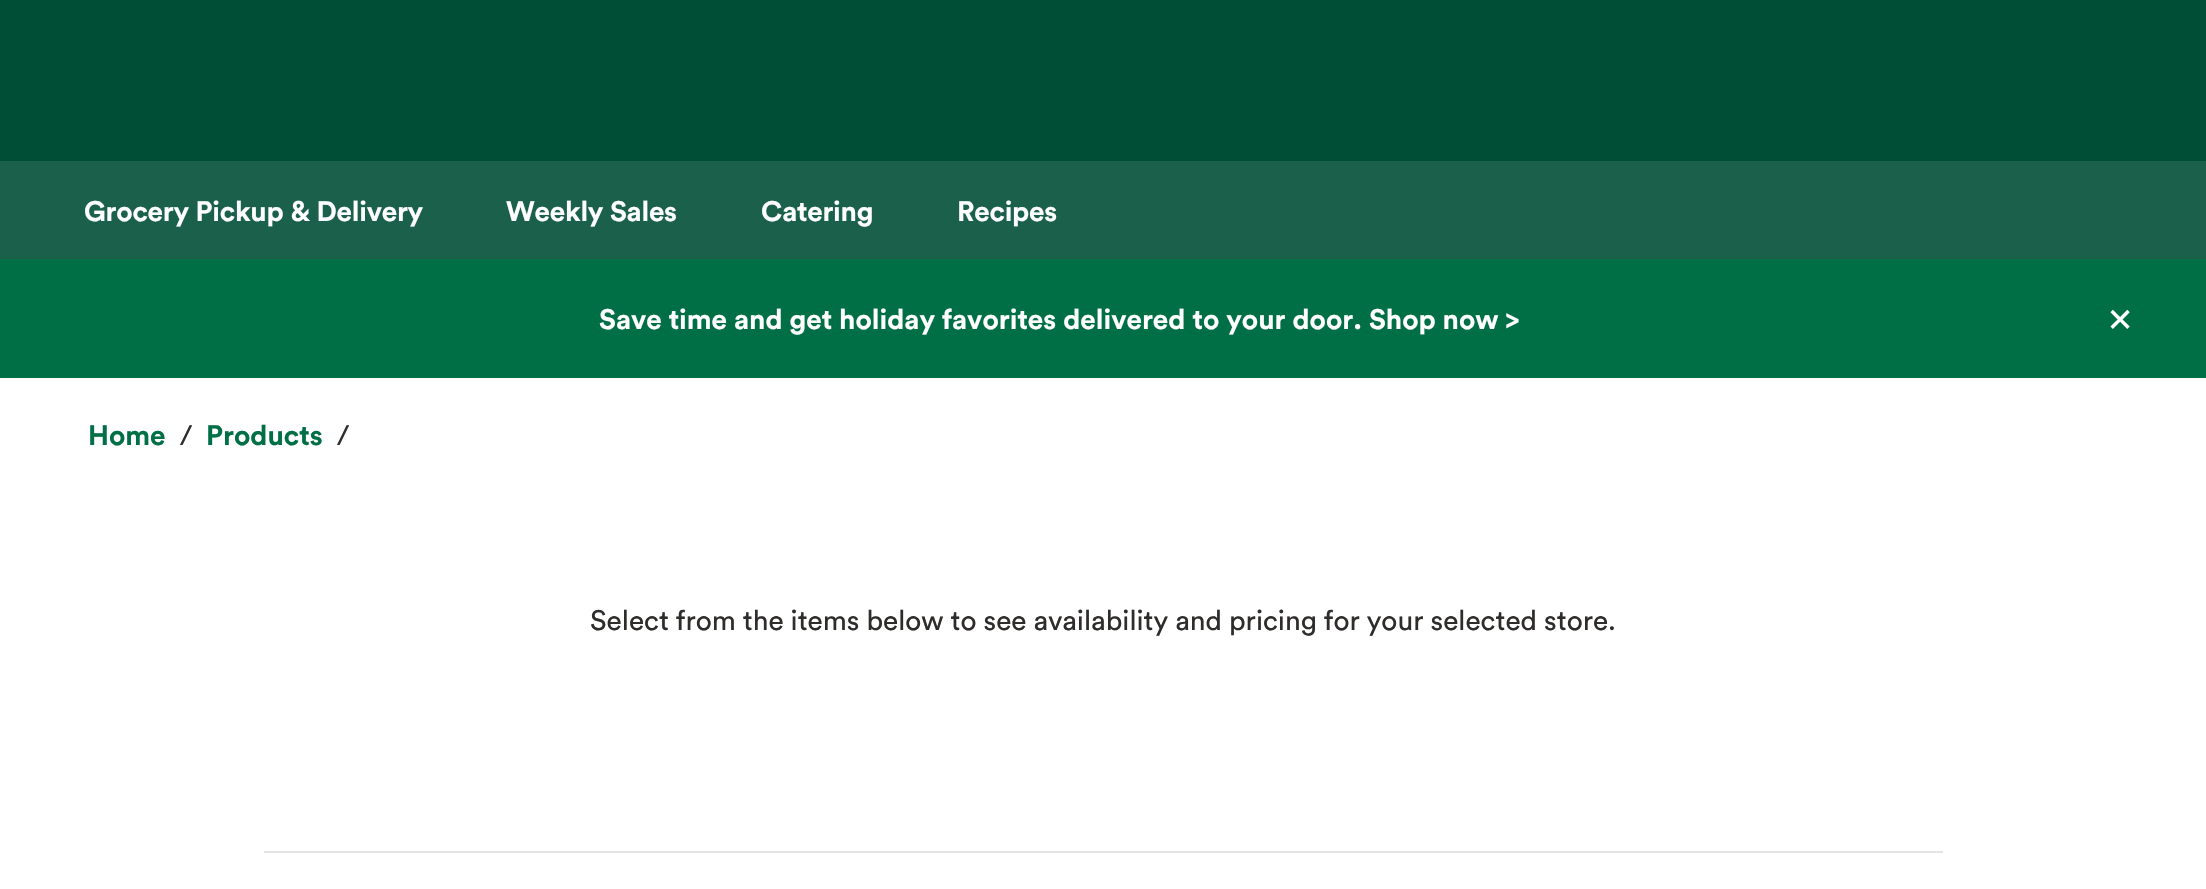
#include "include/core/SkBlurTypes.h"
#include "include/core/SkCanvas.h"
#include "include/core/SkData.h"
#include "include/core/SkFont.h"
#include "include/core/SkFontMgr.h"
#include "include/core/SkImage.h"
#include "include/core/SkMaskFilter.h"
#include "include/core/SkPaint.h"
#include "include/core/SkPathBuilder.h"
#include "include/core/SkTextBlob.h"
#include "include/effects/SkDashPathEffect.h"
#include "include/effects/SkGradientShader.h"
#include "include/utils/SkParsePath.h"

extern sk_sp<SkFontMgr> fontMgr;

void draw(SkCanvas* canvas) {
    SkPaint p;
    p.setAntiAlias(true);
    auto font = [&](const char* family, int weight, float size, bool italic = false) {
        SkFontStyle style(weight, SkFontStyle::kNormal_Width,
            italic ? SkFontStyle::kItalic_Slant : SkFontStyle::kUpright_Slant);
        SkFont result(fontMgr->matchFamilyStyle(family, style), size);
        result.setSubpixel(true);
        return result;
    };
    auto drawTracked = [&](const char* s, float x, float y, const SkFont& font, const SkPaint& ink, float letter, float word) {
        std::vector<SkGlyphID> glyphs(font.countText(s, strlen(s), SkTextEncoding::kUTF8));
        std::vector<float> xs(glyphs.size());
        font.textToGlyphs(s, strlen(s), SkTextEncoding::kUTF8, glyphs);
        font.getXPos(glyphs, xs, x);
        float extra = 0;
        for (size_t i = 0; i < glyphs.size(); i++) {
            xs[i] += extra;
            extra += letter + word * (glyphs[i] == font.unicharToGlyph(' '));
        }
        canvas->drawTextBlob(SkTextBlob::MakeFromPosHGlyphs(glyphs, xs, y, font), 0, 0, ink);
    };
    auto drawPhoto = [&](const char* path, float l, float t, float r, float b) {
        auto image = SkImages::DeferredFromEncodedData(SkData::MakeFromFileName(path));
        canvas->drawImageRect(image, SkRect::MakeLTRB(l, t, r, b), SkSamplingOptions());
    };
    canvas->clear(0xFFFFFFFF);
    p.setColor(0xFF004E36);
    canvas->drawRect(SkRect::MakeLTRB(0, 0, 2206, 161), p);
    p.setColor(0xFF1A604A);
    canvas->drawRect(SkRect::MakeLTRB(0, 161, 2206, 259), p);
    auto font1 = font("Circular", 700, 28);
    p.setColor(0xFFFFFFFF);
    {
        const struct { const char* s; float x, y; } items[] = {
            {"Grocery Pickup & Delivery", 84, 221},
            {"Weekly Sales", 506, 221},
            {"Catering", 761, 221},
            {"Recipes", 957, 221},
        };
        for (auto [s, x, y] : items) {
            drawTracked(s, x, y, font1, p, -0.25f, 0);
        }
    }
    p.setColor(0xFF006F46);
    canvas->drawRect(SkRect::MakeLTRB(0, 259, 2206, 378), p);
    p.setColor(0xFFFFFFFF);
    canvas->drawString("Save time and get holiday favorites delivered to your door. Shop now >", 599, 329, font1, p);
    drawPhoto("media/1.png", 2110, 309, 2130, 329);
    p.setColor(0xFF006F46);
    canvas->drawString("Home", 88, 445, font1, p);
    auto font2 = font("Circular", 400, 28);
    p.setColor(0xFF2E2D2B);
    canvas->drawString("/", 180, 445, font2, p);
    p.setColor(0xFF006F46);
    canvas->drawString("Products", 206, 445, font1, p);
    p.setColor(0xFF2E2D2B);
    canvas->drawString("/", 337, 445, font2, p);
    canvas->drawString("Select from the items below to see availability and pricing for your selected store.", 590, 630, font2, p);
    p.setColor(0xFFE4E4E4);
    canvas->drawRect(SkRect::MakeLTRB(264, 851, 1943, 853), p);
}
